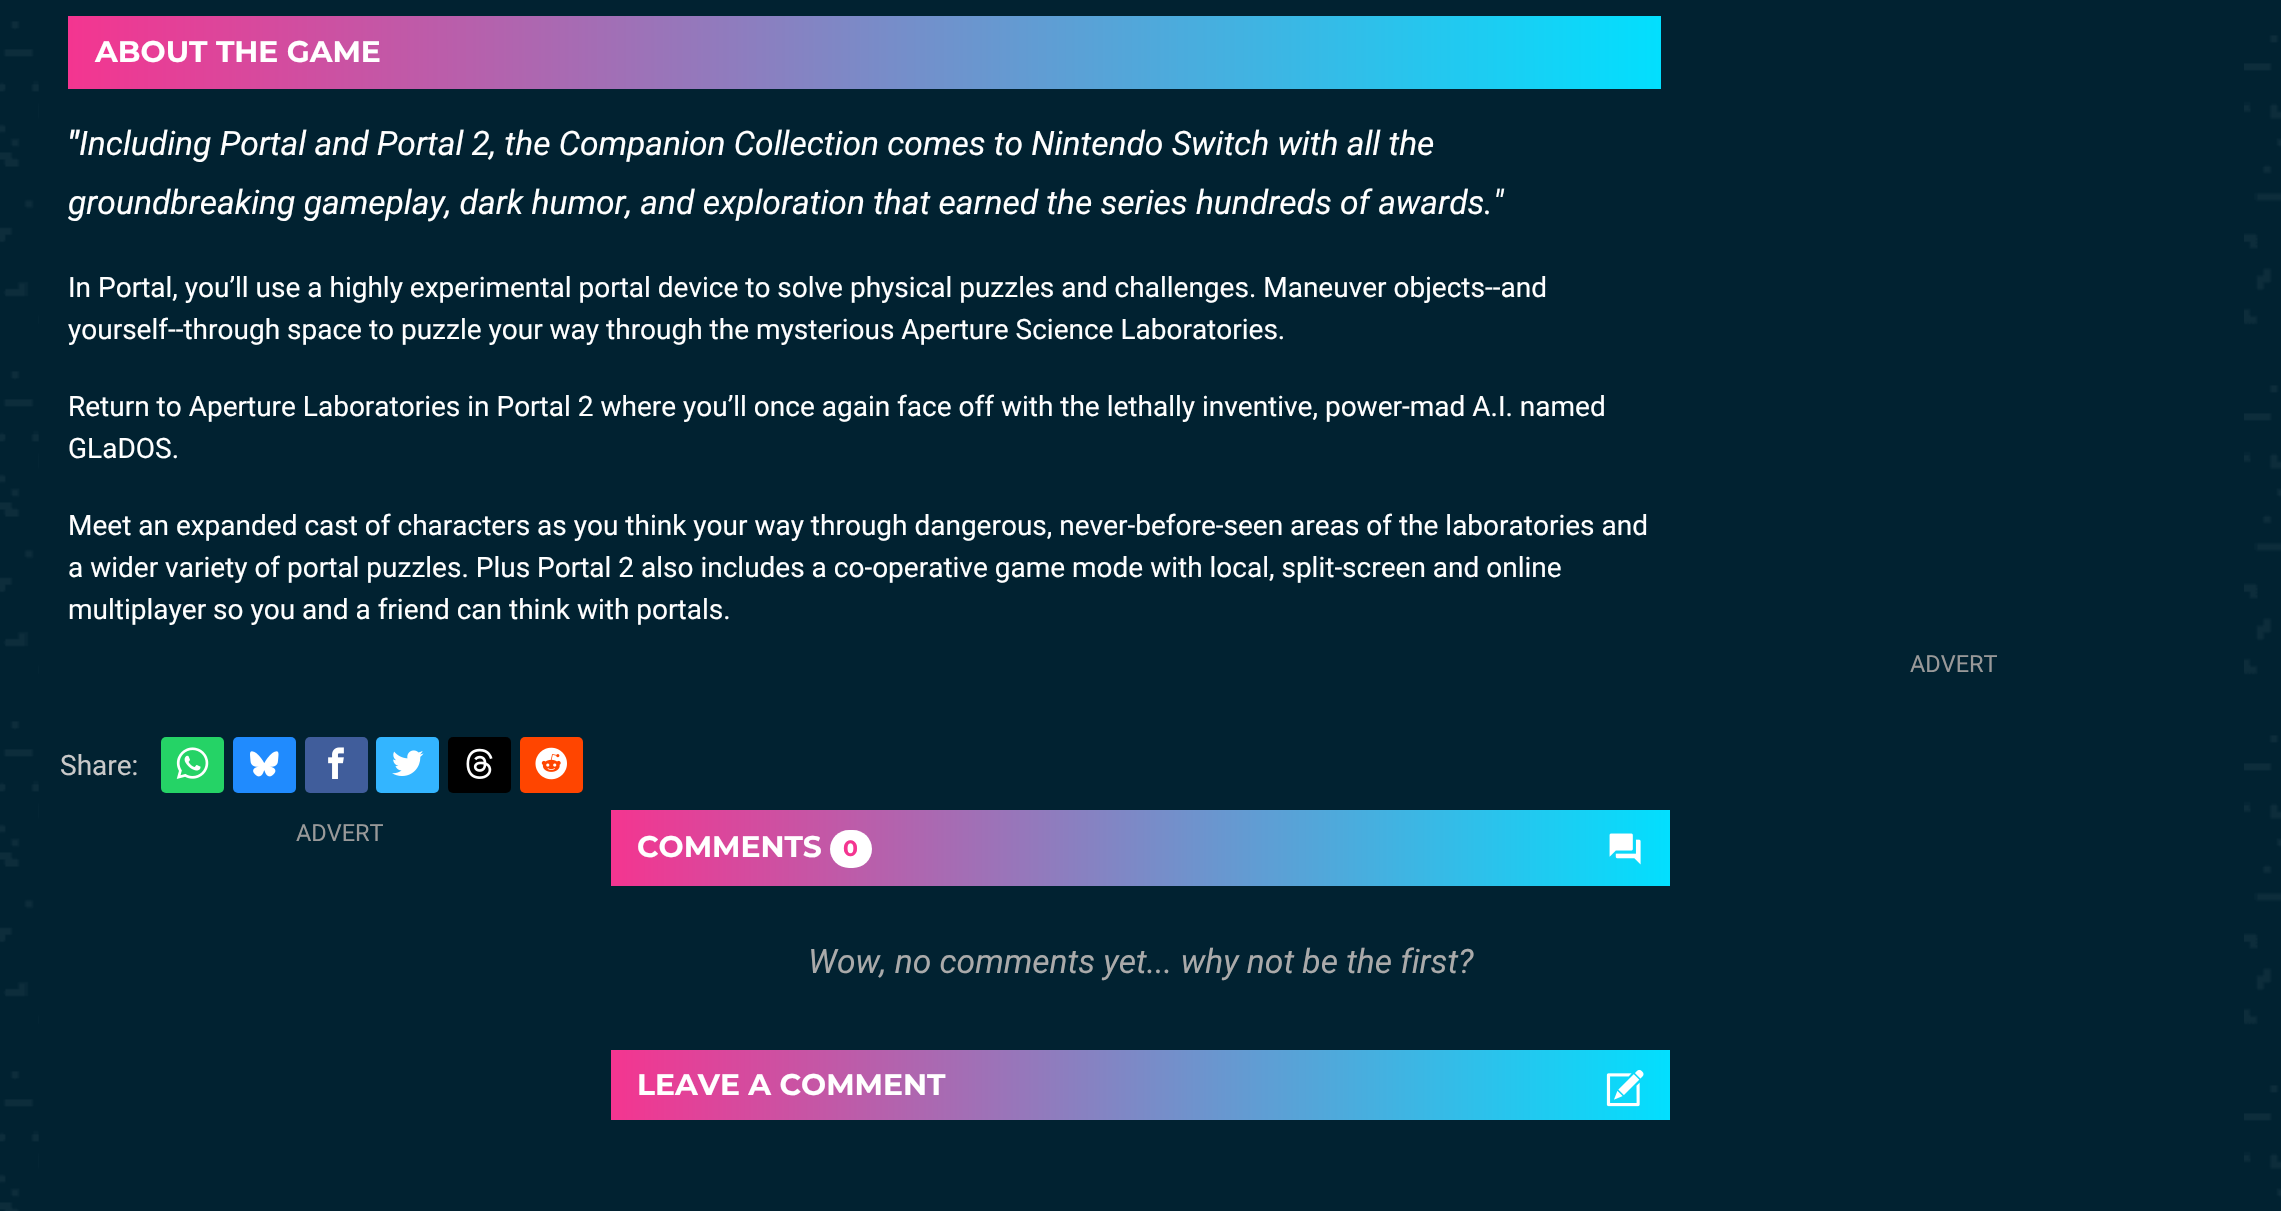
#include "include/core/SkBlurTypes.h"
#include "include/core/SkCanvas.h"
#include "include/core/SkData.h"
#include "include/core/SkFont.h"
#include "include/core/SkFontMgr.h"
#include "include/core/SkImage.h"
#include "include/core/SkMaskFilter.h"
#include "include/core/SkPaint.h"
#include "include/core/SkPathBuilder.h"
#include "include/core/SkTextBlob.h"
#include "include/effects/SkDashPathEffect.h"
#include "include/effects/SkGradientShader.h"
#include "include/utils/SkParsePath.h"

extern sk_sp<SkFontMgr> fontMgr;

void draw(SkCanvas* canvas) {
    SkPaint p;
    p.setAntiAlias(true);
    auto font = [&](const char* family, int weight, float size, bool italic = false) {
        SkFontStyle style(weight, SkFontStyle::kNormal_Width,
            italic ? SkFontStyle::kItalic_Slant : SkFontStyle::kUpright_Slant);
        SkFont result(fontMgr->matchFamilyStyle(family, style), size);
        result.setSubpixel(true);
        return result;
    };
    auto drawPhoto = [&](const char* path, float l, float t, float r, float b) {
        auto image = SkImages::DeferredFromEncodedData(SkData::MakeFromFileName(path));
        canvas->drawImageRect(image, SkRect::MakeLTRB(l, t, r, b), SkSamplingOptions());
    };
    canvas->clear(0xFF012231);
    drawPhoto("media/1.png", 0, 21, 2281, 1211);
    p.setColor(0xFF012231);
    canvas->drawRect(SkRect::MakeLTRB(39, 21, 2244, 1211), p);
    {
        const SkColor colors[] = {0xFFF43590, 0xFF02DFFE};
        const float stops[] = {0, 1};
        const SkPoint ends[] = {{68, 53}, {1661, 52}};
        p.setShader(SkGradientShader::MakeLinear(ends, colors, stops, 2, SkTileMode::kClamp));
        p.setAlpha(255);
    }
    canvas->drawRect(SkRect::MakeLTRB(68, 16, 1661, 89), p);
    auto font1 = font("Montserrat", 700, 29.75f);
    p.setShader(nullptr);
    p.setColor(0xFFFFFFFF);
    canvas->drawString("ABOUT THE GAME", 95, 62, font1, p);
    auto font2 = font("Roboto", 700, 33.6f, true);
    canvas->drawString("\"", 68, 155, font2, p);
    auto font3 = font("Roboto", 400, 33.6f, true);
    canvas->drawString("Including Portal and Portal 2, the Companion Collection comes to Nintendo Switch with all the", 79, 155, font3, p);
    canvas->drawString("groundbreaking gameplay, dark humor, and exploration that earned the series hundreds of awards.\"", 68, 214, font3, p);
    auto font4 = font("Roboto", 400, 28);
    {
        const struct { const char* s; float x, y; } items[] = {
            {"In Portal, you’ll use a highly experimental portal device to solve physical puzzles and challenges. Maneuver objects--and", 68, 297},
            {"yourself--through space to puzzle your way through the mysterious Aperture Science Laboratories.", 68, 339},
            {"Return to Aperture Laboratories in Portal 2 where you’ll once again face off with the lethally inventive, power-mad A.I. named", 68, 416},
            {"GLaDOS.", 68, 458},
            {"Meet an expanded cast of characters as you think your way through dangerous, never-before-seen areas of the laboratories and", 68, 535},
            {"a wider variety of portal puzzles. Plus Portal 2 also includes a co-operative game mode with local, split-screen and online", 68, 577},
            {"multiplayer so you and a friend can think with portals.", 68, 619},
        };
        for (auto [s, x, y] : items) {
            canvas->drawString(s, x, y, font4, p);
        }
    }
    p.setColor(0xFFC9C9C9);
    canvas->drawString("Share:", 60, 775, font4, p);
    p.setColor(0xFF25D366);
    canvas->drawRoundRect(SkRect::MakeLTRB(161, 737, 224, 793), 5, 5, p);
    drawPhoto("media/2.png", 176, 747, 209, 779);
    p.setColor(0xFF208BFE);
    canvas->drawRoundRect(SkRect::MakeLTRB(233, 737, 296, 793), 5, 5, p);
    drawPhoto("media/3.png", 250, 751, 279, 777);
    p.setColor(0xFF405D9B);
    canvas->drawRoundRect(SkRect::MakeLTRB(305, 737, 368, 793), 5, 5, p);
    drawPhoto("media/4.png", 328, 747, 344, 779);
    p.setColor(0xFF33B5FF);
    canvas->drawRoundRect(SkRect::MakeLTRB(376, 737, 439, 793), 5, 5, p);
    drawPhoto("media/5.png", 392, 750, 424, 776);
    p.setColor(0xFF000000);
    canvas->drawRoundRect(SkRect::MakeLTRB(448, 737, 511, 793), 5, 5, p);
    drawPhoto("media/6.png", 466, 748, 493, 779);
    p.setColor(0xFFFF4500);
    canvas->drawRoundRect(SkRect::MakeLTRB(520, 737, 583, 793), 5, 5, p);
    drawPhoto("media/7.png", 535, 747, 567, 780);
    auto font5 = font("Roboto", 400, 23.5f);
    p.setColor(0xFF999999);
    canvas->drawString("ADVERT", 296, 841, font5, p);
    {
        const SkColor colors[] = {0xFFF43590, 0xFF02DFFE};
        const float stops[] = {0, 1};
        const SkPoint ends[] = {{611, 848}, {1670, 848}};
        p.setShader(SkGradientShader::MakeLinear(ends, colors, stops, 2, SkTileMode::kClamp));
        p.setAlpha(255);
    }
    canvas->drawRect(SkRect::MakeLTRB(611, 810, 1670, 886), p);
    p.setShader(nullptr);
    p.setColor(0xFFFFFFFF);
    canvas->drawString("COMMENTS", 637, 857, font1, p);
    canvas->drawRoundRect(SkRect::MakeLTRB(830, 830, 872, 868), 19, 19, p);
    auto font6 = font("Montserrat", 700, 22);
    p.setColor(0xFFF43590);
    canvas->drawString("0", 843, 856, font6, p);
    drawPhoto("media/8.png", 1609, 833, 1641, 865);
    p.setColor(0xFFAAAAAA);
    canvas->drawString("Wow, no comments yet... why not be the first?", 808, 973, font3, p);
    {
        const SkColor colors[] = {0xFFF43590, 0xFF02DFFE};
        const float stops[] = {0, 1};
        const SkPoint ends[] = {{611, 1085}, {1670, 1085}};
        p.setShader(SkGradientShader::MakeLinear(ends, colors, stops, 2, SkTileMode::kClamp));
        p.setAlpha(255);
    }
    canvas->drawRect(SkRect::MakeLTRB(611, 1050, 1670, 1120), p);
    p.setShader(nullptr);
    p.setColor(0xFFFFFFFF);
    canvas->drawString("LEAVE A COMMENT", 637, 1095, font1, p);
    drawPhoto("media/9.png", 1606, 1069, 1644, 1107);
    p.setColor(0xFF999999);
    canvas->drawString("ADVERT", 1910, 672, font5, p);
}
